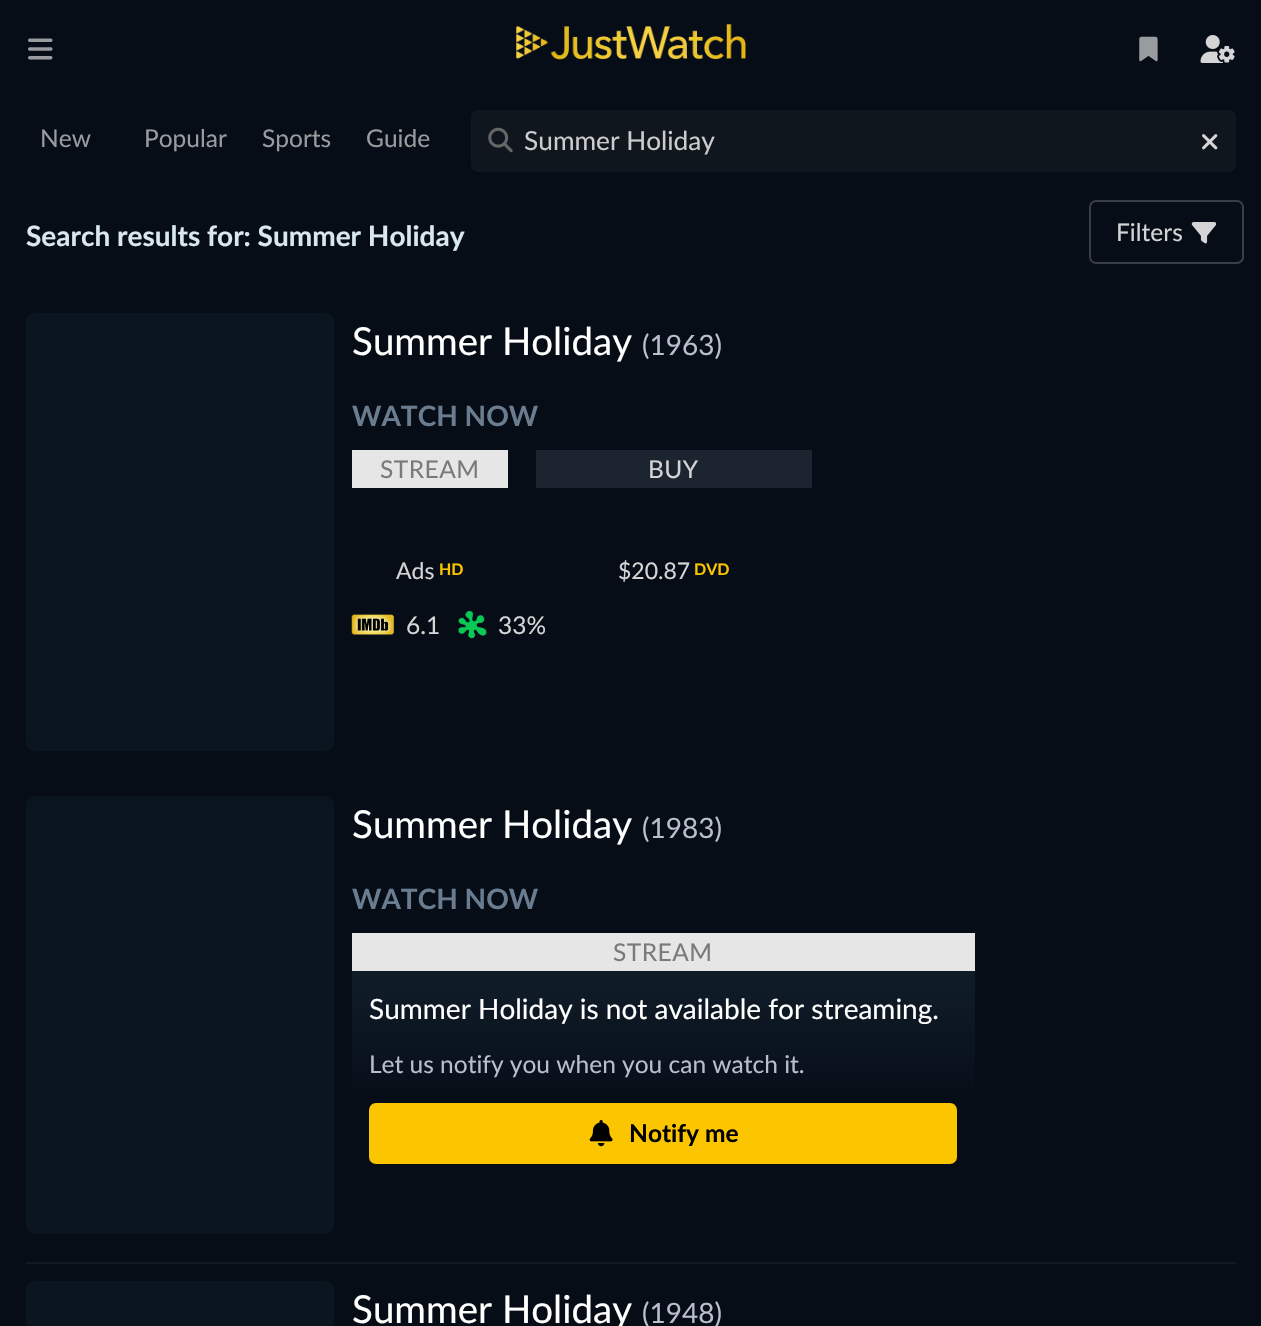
#include "include/core/SkBlurTypes.h"
#include "include/core/SkCanvas.h"
#include "include/core/SkData.h"
#include "include/core/SkFont.h"
#include "include/core/SkFontMgr.h"
#include "include/core/SkImage.h"
#include "include/core/SkMaskFilter.h"
#include "include/core/SkPaint.h"
#include "include/core/SkPathBuilder.h"
#include "include/core/SkTextBlob.h"
#include "include/effects/SkDashPathEffect.h"
#include "include/effects/SkGradientShader.h"
#include "include/utils/SkParsePath.h"

extern sk_sp<SkFontMgr> fontMgr;

void draw(SkCanvas* canvas) {
    SkPaint p;
    p.setAntiAlias(true);
    auto font = [&](const char* family, int weight, float size, bool italic = false) {
        SkFontStyle style(weight, SkFontStyle::kNormal_Width,
            italic ? SkFontStyle::kItalic_Slant : SkFontStyle::kUpright_Slant);
        SkFont result(fontMgr->matchFamilyStyle(family, style), size);
        result.setSubpixel(true);
        return result;
    };
    auto drawTracked = [&](const char* s, float x, float y, const SkFont& font, const SkPaint& ink, float letter, float word) {
        std::vector<SkGlyphID> glyphs(font.countText(s, strlen(s), SkTextEncoding::kUTF8));
        std::vector<float> xs(glyphs.size());
        font.textToGlyphs(s, strlen(s), SkTextEncoding::kUTF8, glyphs);
        font.getXPos(glyphs, xs, x);
        float extra = 0;
        for (size_t i = 0; i < glyphs.size(); i++) {
            xs[i] += extra;
            extra += letter + word * (glyphs[i] == font.unicharToGlyph(' '));
        }
        canvas->drawTextBlob(SkTextBlob::MakeFromPosHGlyphs(glyphs, xs, y, font), 0, 0, ink);
    };
    auto drawPhoto = [&](const char* path, float l, float t, float r, float b) {
        auto image = SkImages::DeferredFromEncodedData(SkData::MakeFromFileName(path));
        canvas->drawImageRect(image, SkRect::MakeLTRB(l, t, r, b), SkSamplingOptions());
    };
    canvas->clear(0xFF060D17);
    drawPhoto("media/1.png", 516, 23, 746, 60);
    drawPhoto("media/2.png", 28, 38, 53, 60);
    drawPhoto("media/3.png", 1200, 35, 1235, 63);
    drawPhoto("media/4.png", 1139, 36, 1158, 62);
    auto font1 = font("Lato", 400, 24.5f);
    p.setColor(0xFF999C9F);
    {
        const struct { const char* s; float x, y; } items[] = {
            {"New", 40, 147},
            {"Popular", 144, 147},
            {"Sports", 262, 147},
            {"Guide", 366, 147},
        };
        for (auto [s, x, y] : items) {
            canvas->drawString(s, x, y, font1, p);
        }
    }
    p.setColor(0xFF10161D);
    canvas->drawRoundRect(SkRect::MakeLTRB(471, 110, 1236, 172), 7, 7, p);
    drawPhoto("media/5.png", 488, 127, 513, 153);
    auto font2 = font("Lato", 400, 26.25f);
    p.setColor(0xFFCCCCCC);
    canvas->drawString("Summer Holiday", 524, 150, font2, p);
    drawPhoto("media/6.png", 1202, 134, 1218, 150);
    auto font3 = font("Lato", 700, 28);
    p.setColor(0xFFD9E8ED);
    canvas->drawString("Search results for: Summer Holiday", 26, 246, font3, p);
    p.setStyle(SkPaint::kStroke_Style);
    p.setStrokeWidth(2);
    p.setColor(0xFF383D47);
    canvas->drawRoundRect(SkRect::MakeLTRB(1090, 201, 1243, 263), 6, 6, p);
    p.setStyle(SkPaint::kFill_Style);
    p.setColor(0xFFD5D5D5);
    canvas->drawString("Filters", 1116, 241, font1, p);
    drawPhoto("media/7.png", 1191, 222, 1216, 244);
    p.setColor(0xFF0A151F);
    canvas->drawRoundRect(SkRect::MakeLTRB(26, 313, 334, 751), 9, 9, p);
    auto font4 = font("Lato", 400, 38.5f);
    p.setColor(0xFFFFFFFF);
    canvas->drawString("Summer Holiday", 352, 355, font4, p);
    auto font5 = font("Lato", 400, 28);
    p.setColor(0xFFB9BDCC);
    canvas->drawString("(1963)", 642, 355, font5, p);
    p.setColor(0xFF6A7C8F);
    canvas->drawString("WATCH NOW", 352, 426, font3, p);
    p.setColor(0xFFE6E6E6);
    canvas->drawRect(SkRect::MakeLTRB(352, 450, 508, 488), p);
    p.setColor(0xFF797A7B);
    drawTracked("STREAM", 380, 478, font1, p, 0.5f, 0);
    auto font6 = font("Lato", 400, 23);
    p.setColor(0xFFD5D5D5);
    canvas->drawString("Ads", 396, 579, font6, p);
    auto font7 = font("Lato", 700, 16);
    p.setColor(0xFFFBC500);
    canvas->drawString("HD", 439, 575, font7, p);
    p.setColor(0xFF1C252F);
    canvas->drawRect(SkRect::MakeLTRB(536, 450, 812, 488), p);
    p.setColor(0xFFD5D5D5);
    drawTracked("BUY", 648, 478, font1, p, 0.5f, 0);
    canvas->drawString("$20.87", 618, 579, font6, p);
    p.setColor(0xFFFBC500);
    canvas->drawString("DVD", 694, 575, font7, p);
    drawPhoto("media/8.png", 351, 614, 394, 635);
    p.setColor(0xFFD5D5D5);
    canvas->drawString("6.1", 406, 634, font1, p);
    drawPhoto("media/9.png", 458, 610, 487, 639);
    canvas->drawString("33%", 498, 634, font1, p);
    p.setColor(0xFF111924);
    canvas->drawRect(SkRect::MakeLTRB(26, 1262, 1236, 1264), p);
    p.setColor(0xFF0A151F);
    canvas->drawRoundRect(SkRect::MakeLTRB(26, 796, 334, 1234), 9, 9, p);
    p.setColor(0xFFFFFFFF);
    canvas->drawString("Summer Holiday", 352, 838, font4, p);
    p.setColor(0xFFB9BDCC);
    canvas->drawString("(1983)", 642, 838, font5, p);
    p.setColor(0xFF6A7C8F);
    canvas->drawString("WATCH NOW", 352, 909, font3, p);
    p.setColor(0xFFE6E6E6);
    canvas->drawRect(SkRect::MakeLTRB(352, 933, 975, 971), p);
    p.setColor(0xFF797A7B);
    drawTracked("STREAM", 613, 961, font1, p, 0.5f, 0);
    {
        const SkColor colors[] = {0xFF101D29, 0xFF060D17};
        const float stops[] = {0, 0.65f};
        const SkPoint ends[] = {{663, 971}, {663, 1181}};
        p.setShader(SkGradientShader::MakeLinear(ends, colors, stops, 2, SkTileMode::kClamp));
        p.setAlpha(255);
    }
    canvas->drawRect(SkRect::MakeLTRB(352, 971, 975, 1089), p);
    p.setShader(nullptr);
    p.setColor(0xFFFFFFFF);
    canvas->drawString("Summer Holiday is not available for streaming.", 369, 1019, font5, p);
    p.setColor(0xFFB9BDCC);
    canvas->drawString("Let us notify you when you can watch it.", 369, 1073, font1, p);
    p.setColor(0xFFFBC500);
    canvas->drawRoundRect(SkRect::MakeLTRB(369, 1103, 957, 1164), 7, 7, p);
    drawPhoto("media/10.png", 589, 1120, 613, 1147);
    auto font8 = font("Lato", 700, 24.5f);
    p.setColor(0xFF000000);
    canvas->drawString("Notify me", 629, 1142, font8, p);
    p.setColor(0xFF0A151F);
    canvas->drawRoundRect(SkRect::MakeLTRB(26, 1281, 334, 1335), 9, 9, p);
    p.setColor(0xFFFFFFFF);
    canvas->drawString("Summer Holiday", 352, 1323, font4, p);
    p.setColor(0xFFB9BDCC);
    canvas->drawString("(1948)", 642, 1323, font5, p);
}
